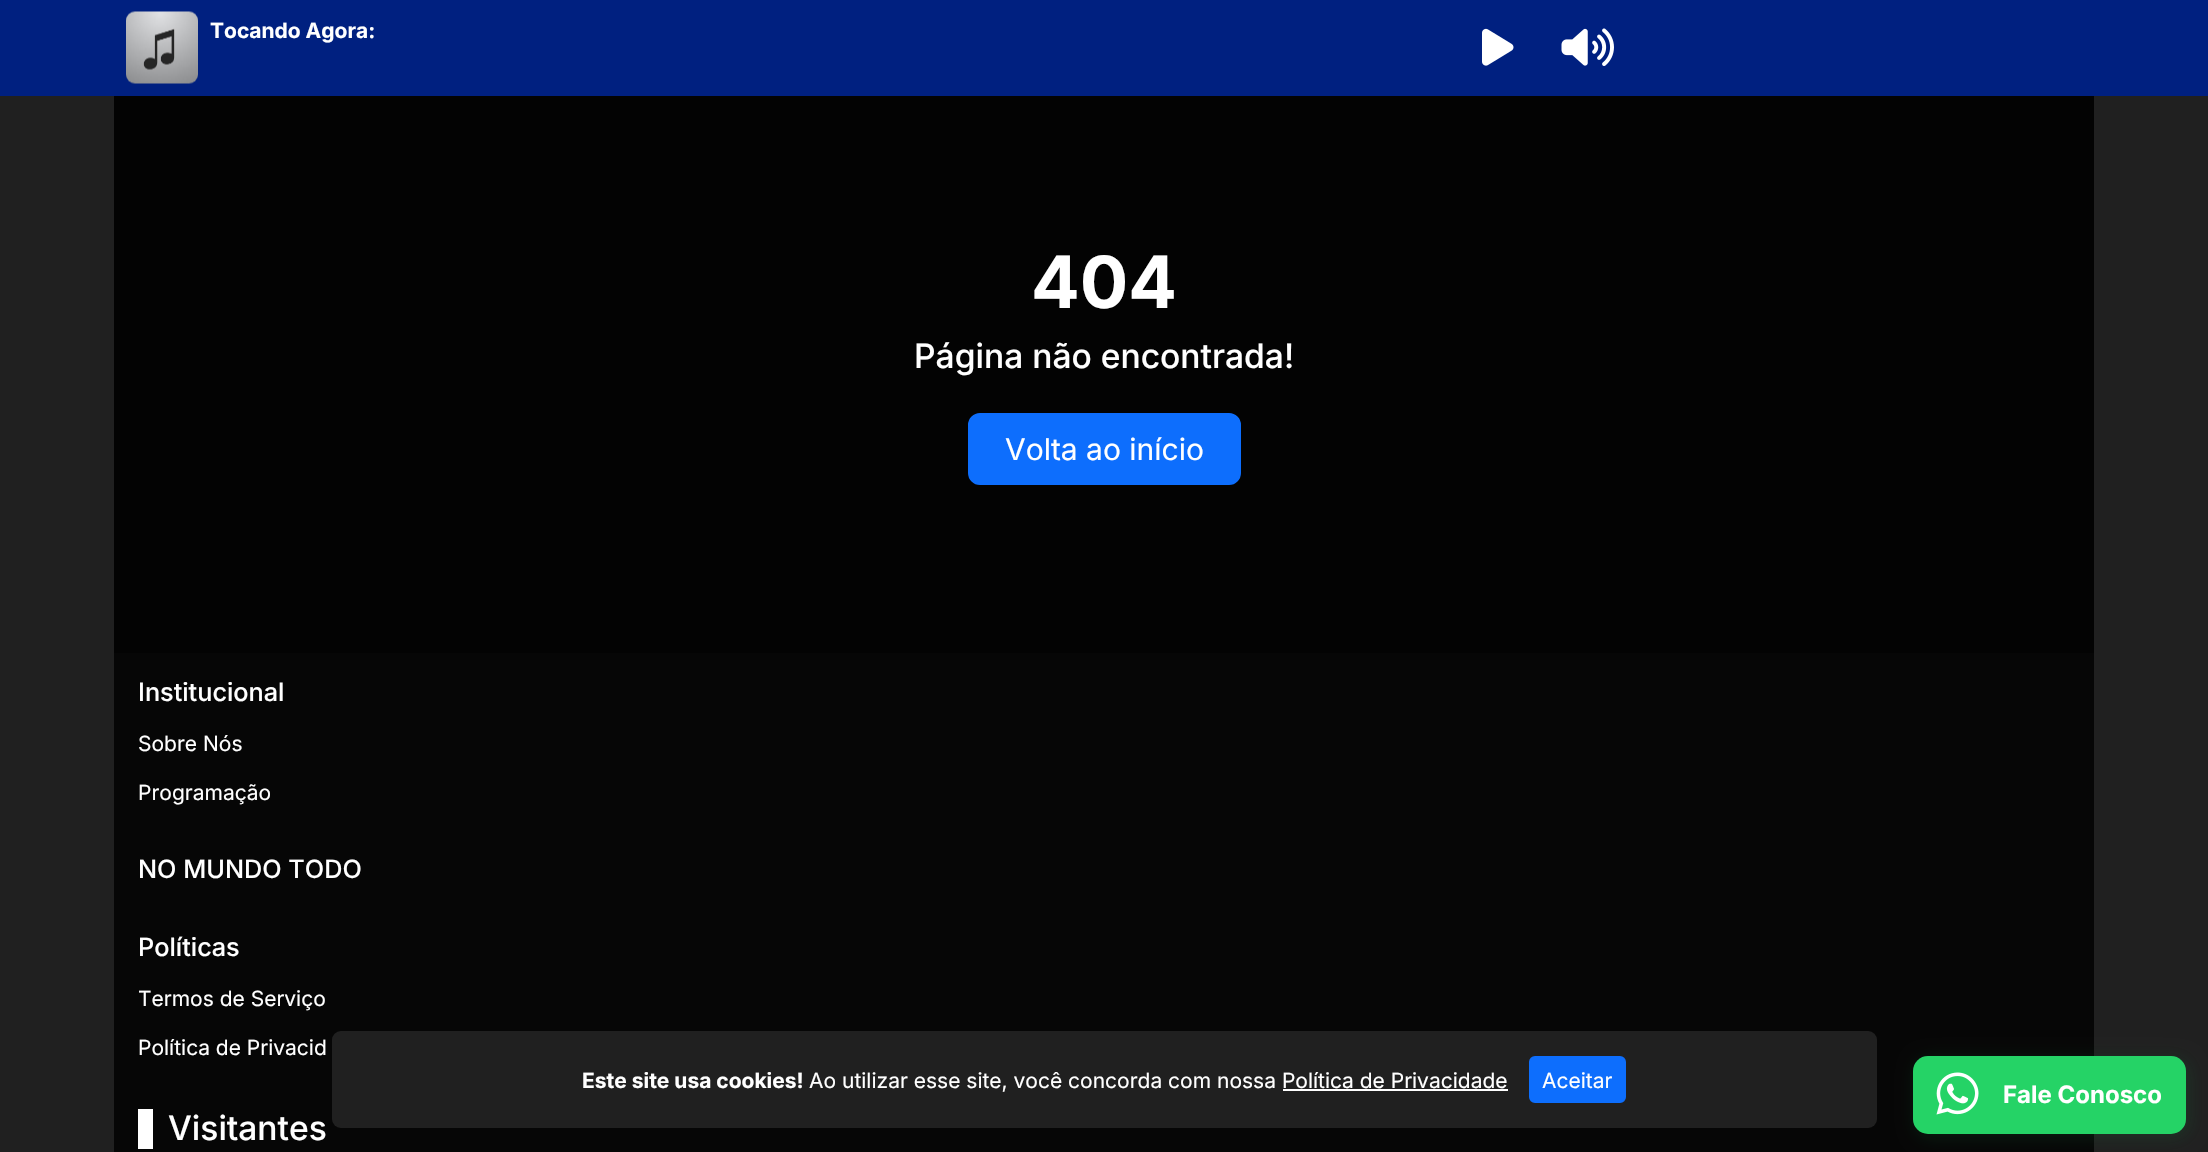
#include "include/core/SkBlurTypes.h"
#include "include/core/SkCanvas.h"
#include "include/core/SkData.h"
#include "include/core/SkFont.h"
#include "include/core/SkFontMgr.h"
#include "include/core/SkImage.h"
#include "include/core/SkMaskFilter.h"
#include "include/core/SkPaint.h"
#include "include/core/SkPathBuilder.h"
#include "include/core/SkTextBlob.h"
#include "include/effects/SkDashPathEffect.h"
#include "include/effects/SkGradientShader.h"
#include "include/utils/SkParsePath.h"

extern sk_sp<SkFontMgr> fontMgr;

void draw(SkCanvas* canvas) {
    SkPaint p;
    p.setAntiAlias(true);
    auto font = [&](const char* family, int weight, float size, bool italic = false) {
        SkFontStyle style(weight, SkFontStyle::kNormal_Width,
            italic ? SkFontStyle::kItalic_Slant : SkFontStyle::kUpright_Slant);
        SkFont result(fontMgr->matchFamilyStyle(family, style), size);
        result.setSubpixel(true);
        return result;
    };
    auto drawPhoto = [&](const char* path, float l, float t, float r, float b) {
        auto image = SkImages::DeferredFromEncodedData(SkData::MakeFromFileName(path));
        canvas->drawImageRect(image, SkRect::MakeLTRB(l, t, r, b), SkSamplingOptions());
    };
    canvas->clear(0xFF202020);
    p.setColor(0xFF002080);
    canvas->drawRect(SkRect::MakeLTRB(0, 0, 2208, 96), p);
    drawPhoto("media/1.png", 126, 11, 198, 84);
    auto font1 = font("Inter", 700, 21);
    p.setColor(0xFFFFFFFF);
    canvas->drawString("Tocando Agora:", 210, 38, font1, p);
    drawPhoto("media/2.png", 1482, 28, 1514, 66);
    drawPhoto("media/3.png", 1561, 28, 1614, 66);
    p.setColor(0xFF030303);
    canvas->drawRect(SkRect::MakeLTRB(114, 96, 2094, 653), p);
    auto font2 = font("Inter", 700, 72);
    p.setColor(0xFFFFFFFF);
    canvas->drawString("404", 1031, 308, font2, p);
    auto font3 = font("Inter", 500, 33.6f);
    canvas->drawString("Página não encontrada!", 914, 368, font3, p);
    p.setColor(0xFF0D6EFD);
    canvas->drawRoundRect(SkRect::MakeLTRB(969, 414, 1240, 484), 11, 11, p);
    p.setStyle(SkPaint::kStroke_Style);
    p.setStrokeWidth(2);
    canvas->drawRoundRect(SkRect::MakeLTRB(969, 414, 1240, 484), 11, 11, p);
    auto font4 = font("Inter", 400, 30);
    p.setStyle(SkPaint::kFill_Style);
    p.setColor(0xFFFFFFFF);
    canvas->drawString("Volta ao início", 1005, 460, font4, p);
    p.setColor(0xFF060606);
    canvas->drawRect(SkRect::MakeLTRB(114, 653, 2094, 1152), p);
    auto font5 = font("Inter", 500, 25.25f);
    p.setColor(0xFFFFFFFF);
    canvas->drawString("Institucional", 138, 701, font5, p);
    auto font6 = font("Inter", 400, 21);
    canvas->drawString("Sobre Nós", 138, 751, font6, p);
    canvas->drawString("Programação", 138, 800, font6, p);
    canvas->drawString("NO MUNDO TODO", 138, 878, font5, p);
    canvas->drawString("Políticas", 138, 956, font5, p);
    canvas->drawString("Termos de Serviço", 138, 1006, font6, p);
    canvas->drawString("Política de Privacid", 138, 1055, font6, p);
    canvas->drawRect(SkRect::MakeLTRB(138, 1109, 153, 1149), p);
    canvas->drawString("Visitantes", 168, 1140, font3, p);
    p.setColor(0xFF202020);
    canvas->drawRoundRect(SkRect::MakeLTRB(332, 1031, 1877, 1128), 9, 9, p);
    p.setColor(0xFFFFFFFF);
    canvas->drawString("Este site usa cookies!", 582, 1088, font1, p);
    canvas->drawString("Ao utilizar esse site, você concorda com nossa Política de Privacidade", 809, 1088, font6, p);
    p.setColor(0xFF0D6EFD);
    canvas->drawRoundRect(SkRect::MakeLTRB(1530, 1057, 1625, 1102), 5, 5, p);
    p.setStyle(SkPaint::kStroke_Style);
    canvas->drawRoundRect(SkRect::MakeLTRB(1530, 1057, 1625, 1102), 5, 5, p);
    p.setStyle(SkPaint::kFill_Style);
    p.setColor(0xFFFFFFFF);
    canvas->drawString("Aceitar", 1542, 1088, font6, p);
    canvas->drawRect(SkRect::MakeLTRB(1283, 1089, 1508, 1091), p);
    p.setColor(0x33167C3C);
    p.setMaskFilter(SkMaskFilter::MakeBlur(kNormal_SkBlurStyle, 9));
    canvas->drawRoundRect(SkRect::MakeLTRB(1916, 1059, 2189, 1137), 15, 15, p);
    p.setMaskFilter(nullptr);
    p.setColor(0xFF25D366);
    canvas->drawRoundRect(SkRect::MakeLTRB(1913, 1056, 2186, 1134), 15, 15, p);
    drawPhoto("media/4.png", 1936, 1072, 1979, 1115);
    auto font7 = font("Inter", 700, 24);
    p.setColor(0xFFFFFFFF);
    canvas->drawString("Fale Conosco", 2003, 1103, font7, p);
}
